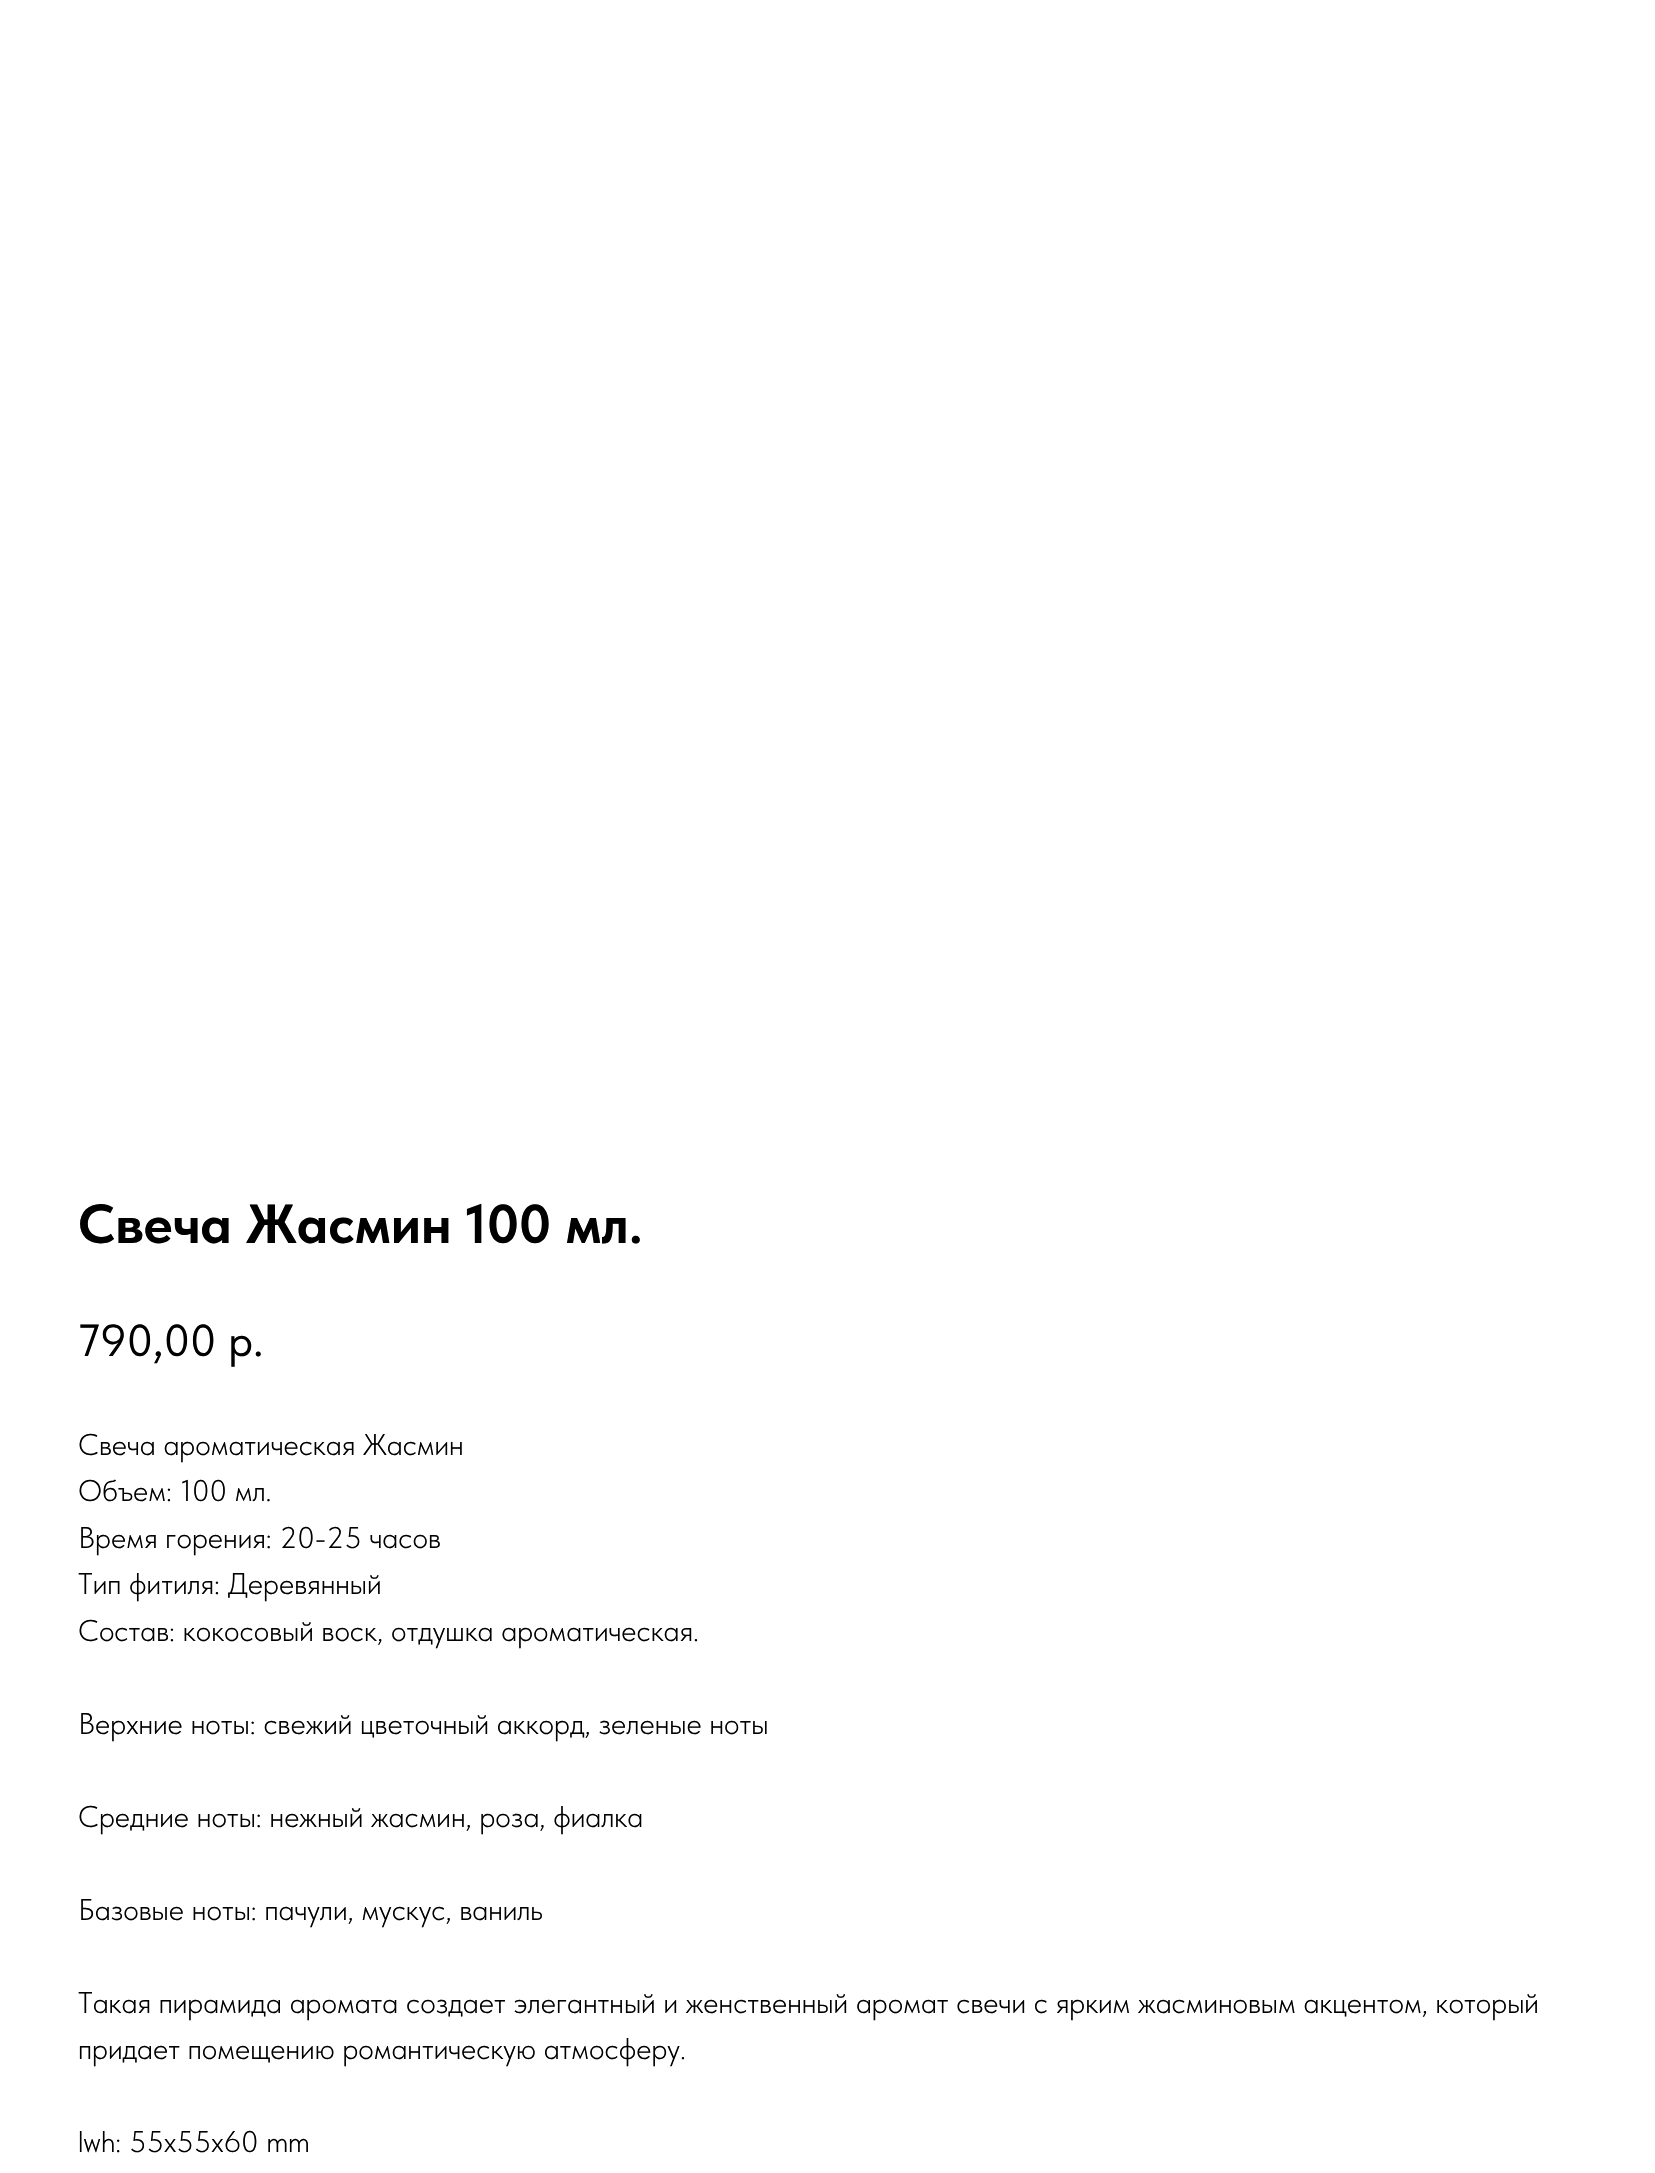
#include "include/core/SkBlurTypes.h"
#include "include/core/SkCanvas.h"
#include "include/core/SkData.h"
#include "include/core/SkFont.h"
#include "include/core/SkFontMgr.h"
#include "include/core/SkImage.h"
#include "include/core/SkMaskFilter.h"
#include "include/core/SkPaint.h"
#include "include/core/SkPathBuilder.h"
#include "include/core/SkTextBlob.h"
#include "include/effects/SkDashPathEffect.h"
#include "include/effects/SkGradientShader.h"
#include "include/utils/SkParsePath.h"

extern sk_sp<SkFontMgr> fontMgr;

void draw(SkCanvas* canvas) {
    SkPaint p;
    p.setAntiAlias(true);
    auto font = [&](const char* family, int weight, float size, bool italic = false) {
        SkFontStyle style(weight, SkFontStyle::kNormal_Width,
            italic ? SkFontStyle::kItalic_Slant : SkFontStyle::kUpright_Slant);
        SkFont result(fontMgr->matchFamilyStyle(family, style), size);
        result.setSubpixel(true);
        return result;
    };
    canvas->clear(0xFFFFFFFF);
    auto font1 = font("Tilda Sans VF", 700, 55);
    p.setColor(0xFF000000);
    canvas->drawString("Свеча Жасмин 100 мл.", 78, 1243, font1, p);
    auto font2 = font("Tilda Sans VF", 400, 45);
    canvas->drawString("790,00", 78, 1356, font2, p);
    canvas->drawString("р.", 228, 1356, font2, p);
    auto font3 = font("Tilda Sans VF", 300, 30);
    {
        const struct { const char* s; float x, y; } items[] = {
            {"Свеча ароматическая Жасмин", 78, 1455},
            {"Объем: 100 мл.", 78, 1501},
            {"Время горения: 20-25 часов", 78, 1548},
            {"Тип фитиля: Деревянный", 78, 1594},
            {"Состав: кокосовый воск, отдушка ароматическая.", 78, 1641},
            {"Верхние ноты: свежий цветочный аккорд, зеленые ноты", 78, 1734},
            {"Средние ноты: нежный жасмин, роза, фиалка", 78, 1827},
            {"Базовые ноты: пачули, мускус, ваниль", 78, 1920},
            {"Такая пирамида аромата создает элегантный и женственный аромат свечи с ярким жасминовым акцентом, который", 78, 2013},
            {"придает помещению романтическую атмосферу.", 78, 2059},
            {"lwh: 55x55x60 mm", 78, 2152},
        };
        for (auto [s, x, y] : items) {
            canvas->drawString(s, x, y, font3, p);
        }
    }
}
